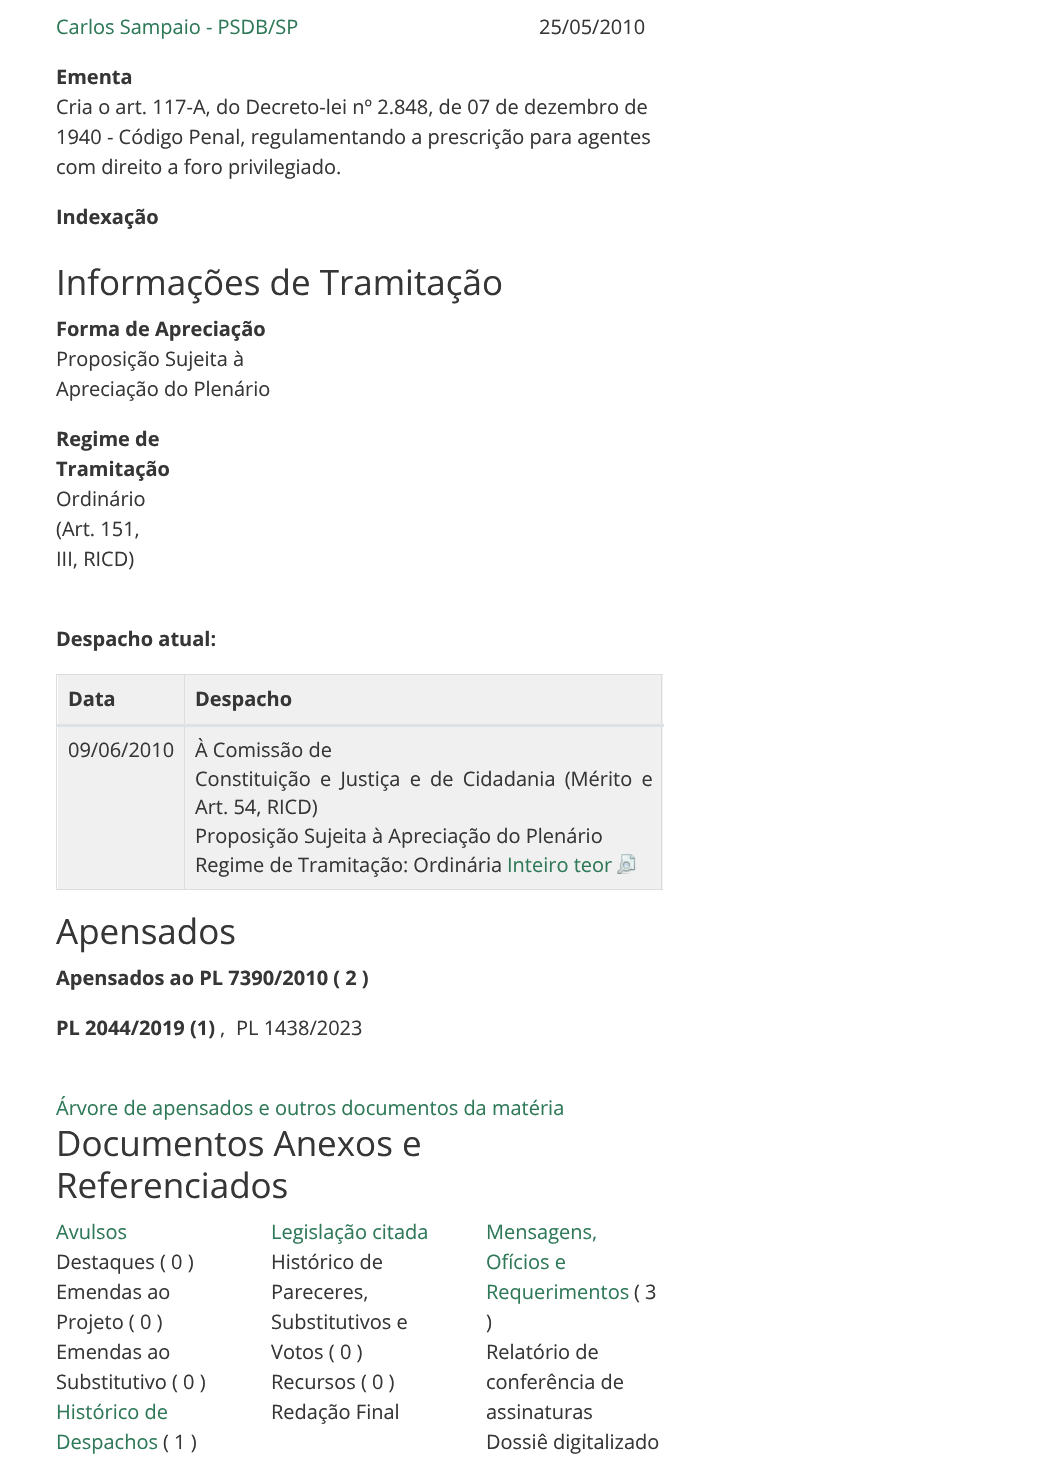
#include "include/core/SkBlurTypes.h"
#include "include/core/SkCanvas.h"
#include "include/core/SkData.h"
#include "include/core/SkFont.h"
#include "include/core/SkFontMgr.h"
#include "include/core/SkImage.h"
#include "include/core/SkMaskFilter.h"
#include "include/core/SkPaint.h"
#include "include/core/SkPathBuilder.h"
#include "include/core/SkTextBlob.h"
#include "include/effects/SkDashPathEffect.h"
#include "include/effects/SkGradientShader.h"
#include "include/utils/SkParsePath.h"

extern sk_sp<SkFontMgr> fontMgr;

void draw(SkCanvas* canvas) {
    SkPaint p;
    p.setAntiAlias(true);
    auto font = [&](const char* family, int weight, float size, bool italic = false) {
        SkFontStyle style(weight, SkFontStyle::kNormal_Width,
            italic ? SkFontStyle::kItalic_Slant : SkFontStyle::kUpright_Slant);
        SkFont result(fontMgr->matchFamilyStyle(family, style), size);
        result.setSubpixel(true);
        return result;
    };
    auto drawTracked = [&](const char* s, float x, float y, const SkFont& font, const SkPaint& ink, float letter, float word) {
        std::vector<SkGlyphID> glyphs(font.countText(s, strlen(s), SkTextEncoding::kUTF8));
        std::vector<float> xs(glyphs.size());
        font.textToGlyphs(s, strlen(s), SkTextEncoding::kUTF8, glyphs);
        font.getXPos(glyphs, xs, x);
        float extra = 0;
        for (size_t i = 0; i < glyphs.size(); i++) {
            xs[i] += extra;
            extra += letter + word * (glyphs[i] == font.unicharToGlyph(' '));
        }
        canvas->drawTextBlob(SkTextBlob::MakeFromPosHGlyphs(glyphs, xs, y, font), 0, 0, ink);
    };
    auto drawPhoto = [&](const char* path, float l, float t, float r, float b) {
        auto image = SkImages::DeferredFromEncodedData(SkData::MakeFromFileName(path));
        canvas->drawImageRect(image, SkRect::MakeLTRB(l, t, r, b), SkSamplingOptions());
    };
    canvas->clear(0xFFFFFFFF);
    auto font1 = font("Open Sans", 400, 20);
    p.setColor(0xFF2F7958);
    canvas->drawString("Carlos Sampaio - PSDB/SP", 56, 34, font1, p);
    p.setColor(0xFF363636);
    canvas->drawString("25/05/2010", 539, 34, font1, p);
    auto font2 = font("Open Sans", 700, 20);
    canvas->drawString("Ementa", 56, 84, font2, p);
    {
        const struct { const char* s; float x, y; } items[] = {
            {"Cria o art. 117-A, do Decreto-lei nº 2.848, de 07 de dezembro de", 56, 114},
            {"1940 - Código Penal, regulamentando a prescrição para agentes", 56, 144},
            {"com direito a foro privilegiado.", 56, 174},
        };
        for (auto [s, x, y] : items) {
            canvas->drawString(s, x, y, font1, p);
        }
    }
    canvas->drawString("Indexação", 56, 224, font2, p);
    auto font3 = font("Open Sans", 400, 35);
    canvas->drawString("Informações de Tramitação", 56, 295, font3, p);
    canvas->drawString("Forma de Apreciação", 56, 336, font2, p);
    canvas->drawString("Proposição Sujeita à", 56, 366, font1, p);
    canvas->drawString("Apreciação do Plenário", 56, 396, font1, p);
    canvas->drawString("Regime de", 56, 446, font2, p);
    canvas->drawString("Tramitação", 56, 476, font2, p);
    {
        const struct { const char* s; float x, y; } items[] = {
            {"Ordinário", 56, 506},
            {"(Art. 151,", 56, 536},
            {"III, RICD)", 56, 566},
        };
        for (auto [s, x, y] : items) {
            canvas->drawString(s, x, y, font1, p);
        }
    }
    canvas->drawString("Despacho atual:", 56, 646, font2, p);
    {
        const struct { float l, t, r, b; SkColor color; } items[] = {
            {58, 675, 663, 724, 0xFFF0F0F0},
            {184, 674, 663, 675, 0xFFDDDDDD},
            {58, 727, 663, 889, 0xFFF0F0F0},
            {661, 724, 662, 890, 0xFFDDDDDD},
            {184, 889, 663, 890, 0xFFDDDDDD},
            {184, 724, 185, 890, 0xFFDDDDDD},
            {184, 674, 185, 725, 0xFFDDDDDD},
            {56, 674, 185, 675, 0xFFDDDDDD},
            {56, 889, 185, 890, 0xFFDDDDDD},
            {56, 724, 57, 890, 0xFFDDDDDD},
            {56, 674, 57, 725, 0xFFDDDDDD},
        };
        for (auto [l, t, r, b, color] : items) {
            p.setColor(color);
            canvas->drawRect(SkRect::MakeLTRB(l, t, r, b), p);
        }
    }
    p.setColor(0xFF363636);
    canvas->drawString("Data", 68, 706, font2, p);
    p.setColor(0xFFDDDDDD);
    canvas->drawRect(SkRect::MakeLTRB(661, 674, 662, 725), p);
    p.setColor(0xFF363636);
    canvas->drawString("Despacho", 195, 706, font2, p);
    p.setColor(0xFFDEE2E6);
    canvas->drawRect(SkRect::MakeLTRB(56, 724, 664, 727), p);
    p.setColor(0xFF363636);
    canvas->drawString("09/06/2010", 68, 757, font1, p);
    canvas->drawString("À Comissão de", 195, 757, font1, p);
    drawTracked("Constituição e Justiça e de Cidadania (Mérito e", 195, 786, font1, p, 0, 4);
    {
        const struct { const char* s; float x, y; } items[] = {
            {"Art. 54, RICD)", 195, 814},
            {"Proposição Sujeita à Apreciação do Plenário", 195, 843},
            {"Regime de Tramitação: Ordinária", 195, 872},
        };
        for (auto [s, x, y] : items) {
            canvas->drawString(s, x, y, font1, p);
        }
    }
    p.setColor(0xFF2F7958);
    canvas->drawString("Inteiro teor", 507, 872, font1, p);
    drawPhoto("media/1.png", 616, 854, 636, 874);
    p.setColor(0xFF363636);
    canvas->drawString("Apensados", 56, 944, font3, p);
    canvas->drawString("Apensados ao PL 7390/2010 ( 2 )", 56, 985, font2, p);
    canvas->drawString("PL 2044/2019 (1)", 56, 1035, font2, p);
    canvas->drawString(",", 220, 1035, font1, p);
    canvas->drawString("PL 1438/2023", 236, 1035, font1, p);
    p.setColor(0xFF2F7958);
    canvas->drawString("Árvore de apensados e outros documentos da matéria", 56, 1115, font1, p);
    p.setColor(0xFF363636);
    canvas->drawString("Documentos Anexos e", 56, 1156, font3, p);
    canvas->drawString("Referenciados", 56, 1198, font3, p);
    p.setColor(0xFF2F7958);
    canvas->drawString("Avulsos", 56, 1239, font1, p);
    p.setColor(0xFF363636);
    {
        const struct { const char* s; float x, y; } items[] = {
            {"Destaques ( 0 )", 56, 1269},
            {"Emendas ao", 56, 1299},
            {"Projeto ( 0 )", 56, 1329},
            {"Emendas ao", 56, 1359},
            {"Substitutivo ( 0 )", 56, 1389},
        };
        for (auto [s, x, y] : items) {
            canvas->drawString(s, x, y, font1, p);
        }
    }
    p.setColor(0xFF2F7958);
    canvas->drawString("Histórico de", 56, 1419, font1, p);
    canvas->drawString("Despachos", 56, 1449, font1, p);
    p.setColor(0xFF363636);
    canvas->drawString("( 1 )", 163, 1449, font1, p);
    p.setColor(0xFF2F7958);
    canvas->drawString("Legislação citada", 271, 1239, font1, p);
    p.setColor(0xFF363636);
    {
        const struct { const char* s; float x, y; } items[] = {
            {"Histórico de", 271, 1269},
            {"Pareceres,", 271, 1299},
            {"Substitutivos e", 271, 1329},
            {"Votos ( 0 )", 271, 1359},
            {"Recursos ( 0 )", 271, 1389},
            {"Redação Final", 271, 1419},
        };
        for (auto [s, x, y] : items) {
            canvas->drawString(s, x, y, font1, p);
        }
    }
    p.setColor(0xFF2F7958);
    {
        const struct { const char* s; float x, y; } items[] = {
            {"Mensagens,", 486, 1239},
            {"Ofícios e", 486, 1269},
            {"Requerimentos", 486, 1299},
        };
        for (auto [s, x, y] : items) {
            canvas->drawString(s, x, y, font1, p);
        }
    }
    p.setColor(0xFF363636);
    {
        const struct { const char* s; float x, y; } items[] = {
            {"( 3", 634, 1299},
            {")", 486, 1329},
            {"Relatório de", 486, 1359},
            {"conferência de", 486, 1389},
            {"assinaturas", 486, 1419},
            {"Dossiê digitalizado", 486, 1449},
        };
        for (auto [s, x, y] : items) {
            canvas->drawString(s, x, y, font1, p);
        }
    }
}
